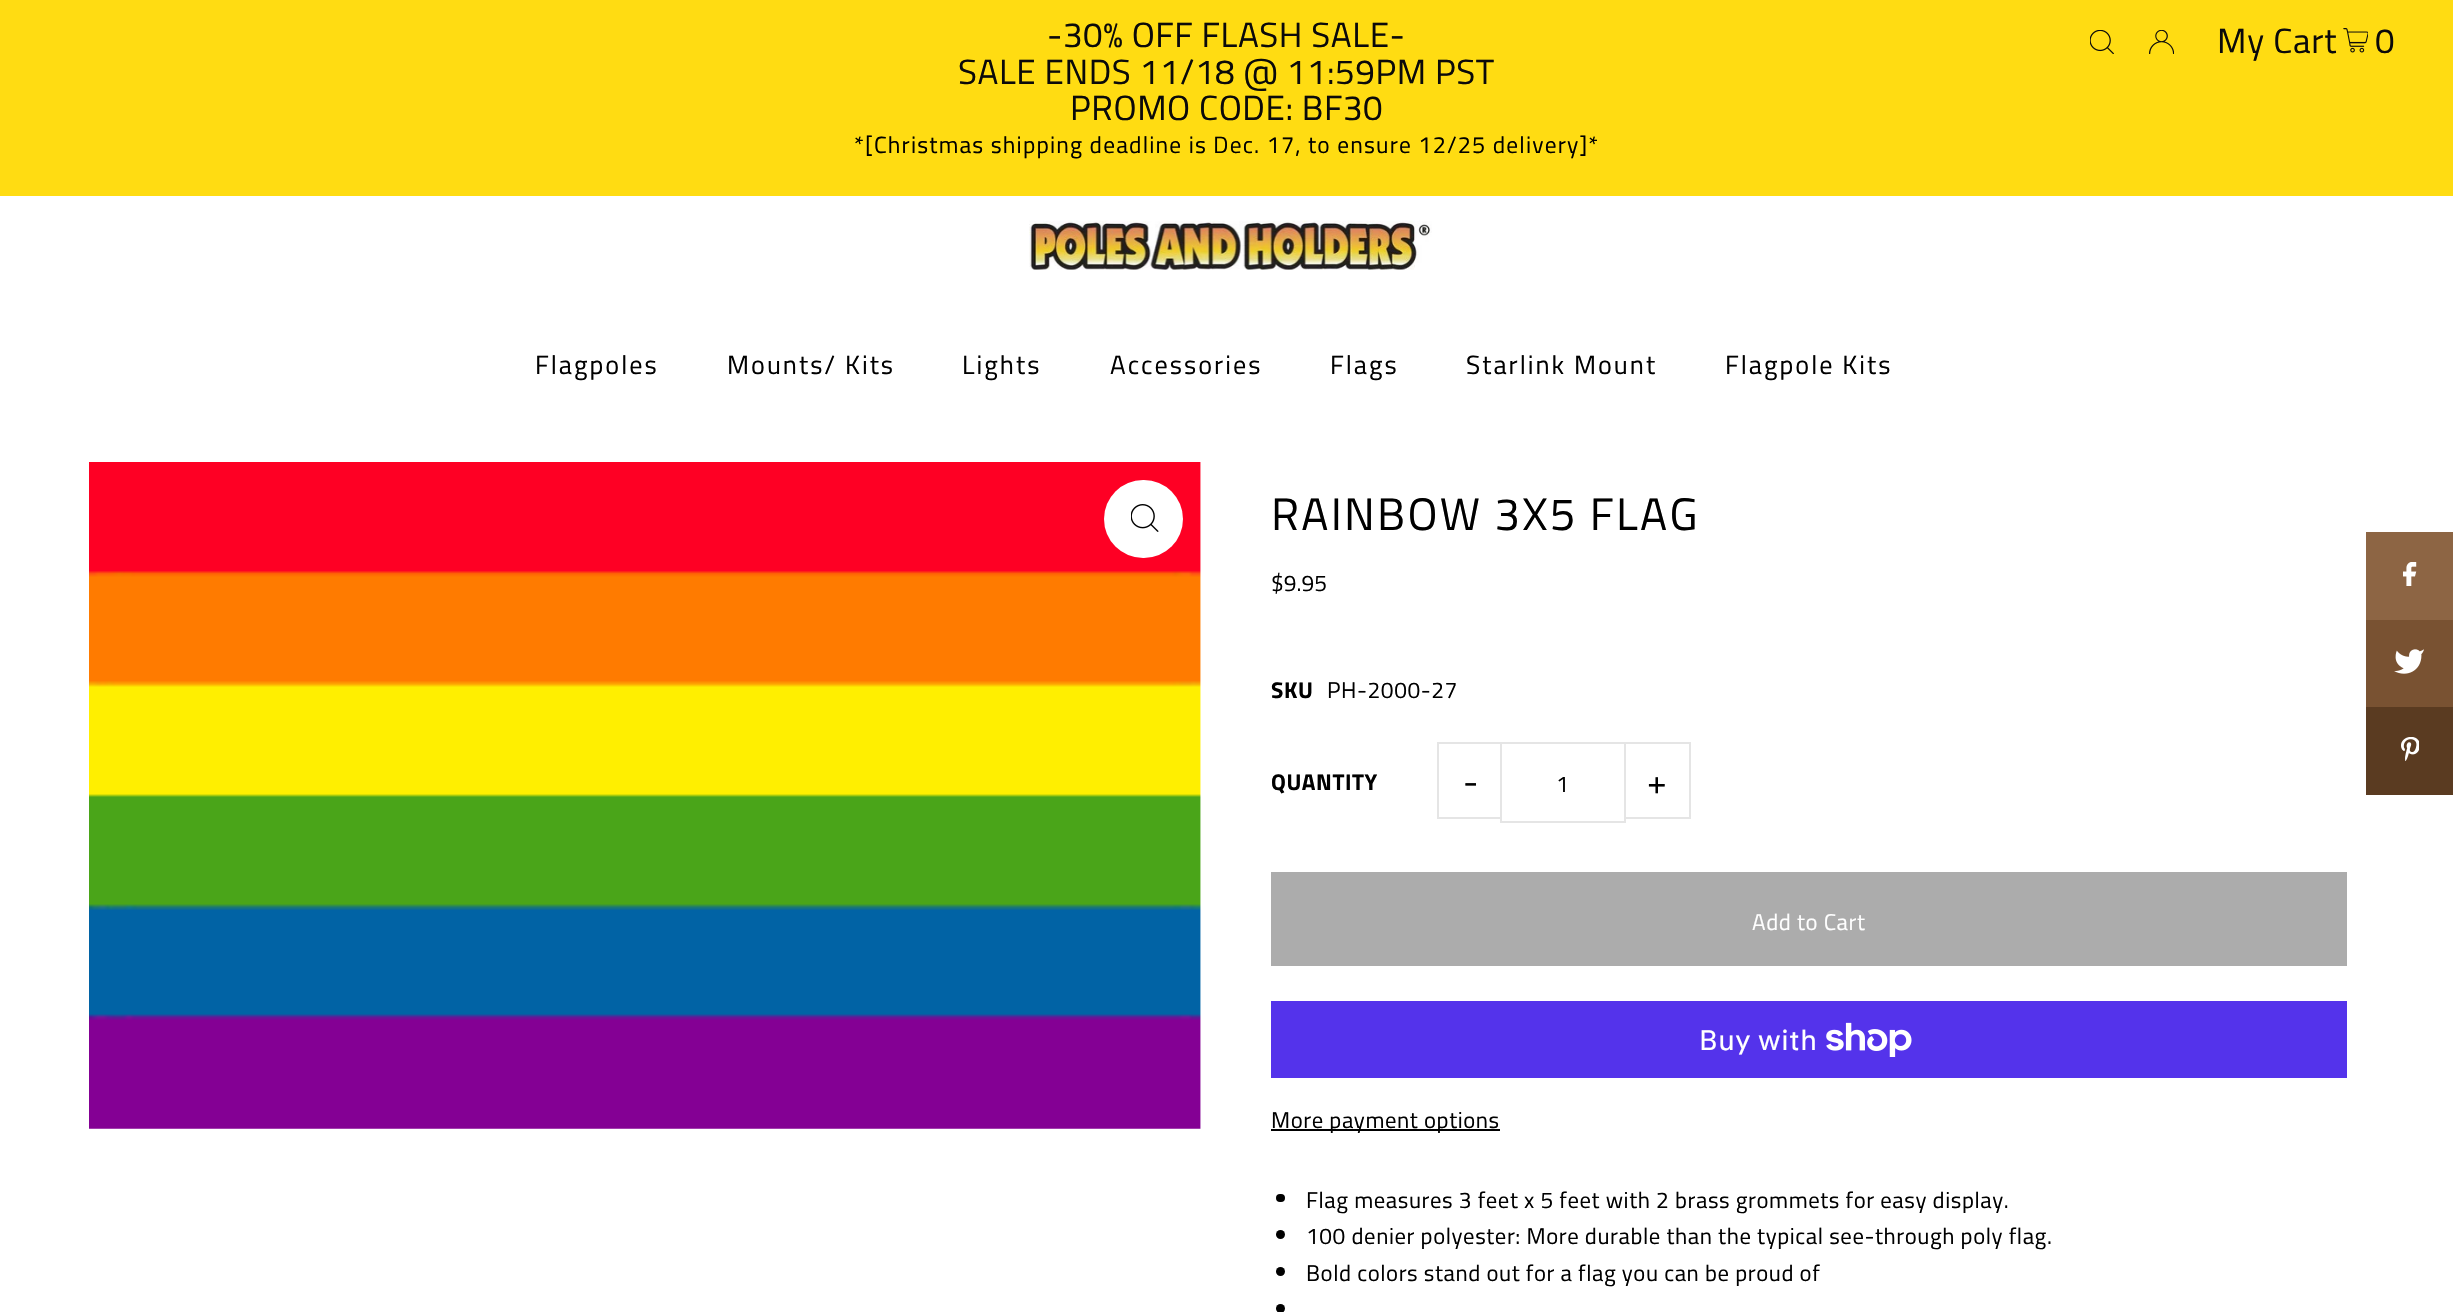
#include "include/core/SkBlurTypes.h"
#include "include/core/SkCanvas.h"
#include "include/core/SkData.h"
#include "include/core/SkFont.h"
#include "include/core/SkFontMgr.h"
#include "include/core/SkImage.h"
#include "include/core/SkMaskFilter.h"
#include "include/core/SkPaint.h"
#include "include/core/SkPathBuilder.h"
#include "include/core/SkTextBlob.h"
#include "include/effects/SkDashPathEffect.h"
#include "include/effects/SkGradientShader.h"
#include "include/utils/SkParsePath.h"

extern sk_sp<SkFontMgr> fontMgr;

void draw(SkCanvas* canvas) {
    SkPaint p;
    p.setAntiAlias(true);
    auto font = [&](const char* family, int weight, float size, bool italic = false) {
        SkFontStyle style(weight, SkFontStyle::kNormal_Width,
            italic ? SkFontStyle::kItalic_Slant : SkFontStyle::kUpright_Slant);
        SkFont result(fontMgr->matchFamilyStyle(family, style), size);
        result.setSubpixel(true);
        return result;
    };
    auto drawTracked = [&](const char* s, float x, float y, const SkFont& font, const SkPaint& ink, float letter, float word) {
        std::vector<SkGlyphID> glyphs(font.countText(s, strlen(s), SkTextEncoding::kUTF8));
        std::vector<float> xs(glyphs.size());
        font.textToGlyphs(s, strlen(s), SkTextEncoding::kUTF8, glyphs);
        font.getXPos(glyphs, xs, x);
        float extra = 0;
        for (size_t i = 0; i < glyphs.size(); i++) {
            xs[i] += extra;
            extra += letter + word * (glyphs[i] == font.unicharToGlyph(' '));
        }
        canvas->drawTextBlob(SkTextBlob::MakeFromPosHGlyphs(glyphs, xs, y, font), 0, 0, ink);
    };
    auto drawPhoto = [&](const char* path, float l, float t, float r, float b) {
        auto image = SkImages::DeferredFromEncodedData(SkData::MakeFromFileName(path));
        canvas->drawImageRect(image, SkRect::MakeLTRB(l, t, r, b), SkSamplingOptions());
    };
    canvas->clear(0xFFFFFFFF);
    p.setColor(0xFFFFDC12);
    canvas->drawRect(SkRect::MakeLTRB(0, 0, 2453, 196), p);
    auto font1 = font("Titillium Web", 400, 35);
    p.setColor(0xFF0B0A0A);
    {
        const struct { const char* s; float x, y; } items[] = {
            {"-30% OFF FLASH SALE-", 1047, 47},
            {"SALE ENDS 11/18 @ 11:59PM PST", 958, 84},
            {"PROMO CODE: BF30", 1070, 120},
        };
        for (auto [s, x, y] : items) {
            drawTracked(s, x, y, font1, p, 0.57f, 0);
        }
    }
    auto font2 = font("Titillium Web", 400, 23.45f);
    p.setColor(0xFF000000);
    drawTracked("*[Christmas shipping deadline is Dec. 17, to ensure 12/25 delivery]*", 854, 153, font2, p, 1.17f, 0);
    drawPhoto("media/1.png", 2090, 30, 2114, 54);
    drawPhoto("media/2.png", 2149, 30, 2174, 54);
    p.setColor(0xFF0B0A0A);
    drawTracked("My Cart", 2217, 53, font1, p, 0.75f, 0);
    drawPhoto("media/3.png", 2343, 28, 2368, 53);
    drawTracked("0", 2375, 53, font1, p, 0.75f, 0);
    drawPhoto("media/4.png", 1029, 220, 1432, 270);
    auto font3 = font("Titillium Web", 400, 26.25f);
    p.setColor(0xFF000000);
    {
        const struct { const char* s; float x, y; } items[] = {
            {"Flagpoles", 535, 374},
            {"Mounts/ Kits", 727, 374},
            {"Lights", 962, 374},
            {"Accessories", 1110, 374},
            {"Flags", 1330, 374},
            {"Starlink Mount", 1466, 374},
            {"Flagpole Kits", 1725, 374},
        };
        for (auto [s, x, y] : items) {
            drawTracked(s, x, y, font3, p, 2, 0);
        }
    }
    drawPhoto("media/5.png", 89, 462, 1201, 1129);
    p.setColor(0xFFFFFFFF);
    canvas->drawRoundRect(SkRect::MakeLTRB(1104, 480, 1183, 558), 39, 39, p);
    drawPhoto("media/6.png", 1131, 504, 1159, 532);
    auto font4 = font("Titillium Web", 400, 45.5f);
    p.setColor(0xFF000000);
    drawTracked("RAINBOW 3X5 FLAG", 1271, 530, font4, p, 2.25f, 0);
    auto font5 = font("Titillium Web", 400, 22.75f);
    canvas->drawString("$9.95", 1271, 591, font5, p);
    auto font6 = font("Titillium Web", 700, 22.75f);
    drawTracked("SKU", 1271, 698, font6, p, 0.57f, 0);
    drawTracked("PH-2000-27", 1327, 698, font5, p, 0.57f, 0);
    drawTracked("QUANTITY", 1271, 790, font6, p, 0.57f, 0);
    {
        const struct { float l, t, r, b; SkColor color; } items[] = {
            {1437, 742, 1503, 744, 0xFFE5E5E5},
            {1437, 817, 1503, 819, 0xFFE5E5E5},
            {1437, 742, 1439, 819, 0xFFE5E5E5},
        };
        for (auto [l, t, r, b, color] : items) {
            p.setColor(color);
            canvas->drawRect(SkRect::MakeLTRB(l, t, r, b), p);
        }
    }
    p.setColor(0xFF000000);
    drawTracked("-", 1463, 794, font1, p, 1, 0);
    p.setColor(0xFFFFFFFF);
    canvas->drawRect(SkRect::MakeLTRB(1502, 817, 1503, 819), p);
    p.setStyle(SkPaint::kStroke_Style);
    p.setStrokeWidth(2);
    p.setColor(0xFFE5E5E5);
    canvas->drawRect(SkRect::MakeLTRB(1501, 743, 1625, 822), p);
    p.setStyle(SkPaint::kFill_Style);
    p.setColor(0xFF000000);
    drawTracked("1", 1556, 792, font5, p, 0.57f, 0);
    {
        const struct { float l, t, r, b; SkColor color; } items[] = {
            {1624, 742, 1691, 744, 0xFFE5E5E5},
            {1689, 742, 1691, 819, 0xFFE5E5E5},
            {1624, 817, 1691, 819, 0xFFE5E5E5},
        };
        for (auto [l, t, r, b, color] : items) {
            p.setColor(color);
            canvas->drawRect(SkRect::MakeLTRB(l, t, r, b), p);
        }
    }
    p.setColor(0xFF000000);
    drawTracked("+", 1647, 794, font1, p, 1, 0);
    p.setColor(0xFFACACAC);
    canvas->drawRect(SkRect::MakeLTRB(1271, 872, 2347, 966), p);
    p.setColor(0xFFFFFFFF);
    drawTracked("Add to Cart", 1752, 930, font5, p, 0.57f, 0);
    p.setColor(0xFF5433EB);
    canvas->drawRect(SkRect::MakeLTRB(1271, 1001, 2347, 1078), p);
    auto font7 = font("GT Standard", 400, 28);
    p.setColor(0xFFFFFFFF);
    drawTracked("Buy with", 1699, 1050, font7, p, 0.57f, 0);
    drawPhoto("media/7.png", 1826, 1022, 1912, 1057);
    p.setColor(0xFF000000);
    canvas->drawRect(SkRect::MakeLTRB(1271, 1129, 1500, 1131), p);
    drawTracked("More payment options", 1271, 1128, font5, p, 0.57f, 0);
    canvas->drawRoundRect(SkRect::MakeLTRB(1276, 1194, 1285, 1202), 4, 4, p);
    drawTracked("Flag measures 3 feet x 5 feet with 2 brass grommets for easy display.", 1306, 1208, font5, p, 0.57f, 0);
    canvas->drawCircle(1280.5f, 1234.5f, 4.5f, p);
    drawTracked("100 denier polyester: More durable than the typical see-through poly flag.", 1306, 1244, font5, p, 0.57f, 0);
    canvas->drawCircle(1280.5f, 1271.5f, 4.5f, p);
    drawTracked("Bold colors stand out for a flag you can be proud of", 1306, 1281, font5, p, 0.57f, 0);
    canvas->drawCircle(1280.5f, 1308.5f, 4.5f, p);
    p.setColor(0xFF8D6544);
    canvas->drawRect(SkRect::MakeLTRB(2366, 532, 2453, 620), p);
    drawPhoto("media/8.png", 2403, 562, 2417, 586);
    p.setColor(0xFF795232);
    canvas->drawRect(SkRect::MakeLTRB(2366, 620, 2453, 707), p);
    drawPhoto("media/9.png", 2394, 649, 2424, 674);
    p.setColor(0xFF5A3B21);
    canvas->drawRect(SkRect::MakeLTRB(2366, 707, 2453, 795), p);
    drawPhoto("media/10.png", 2401, 737, 2419, 761);
}
